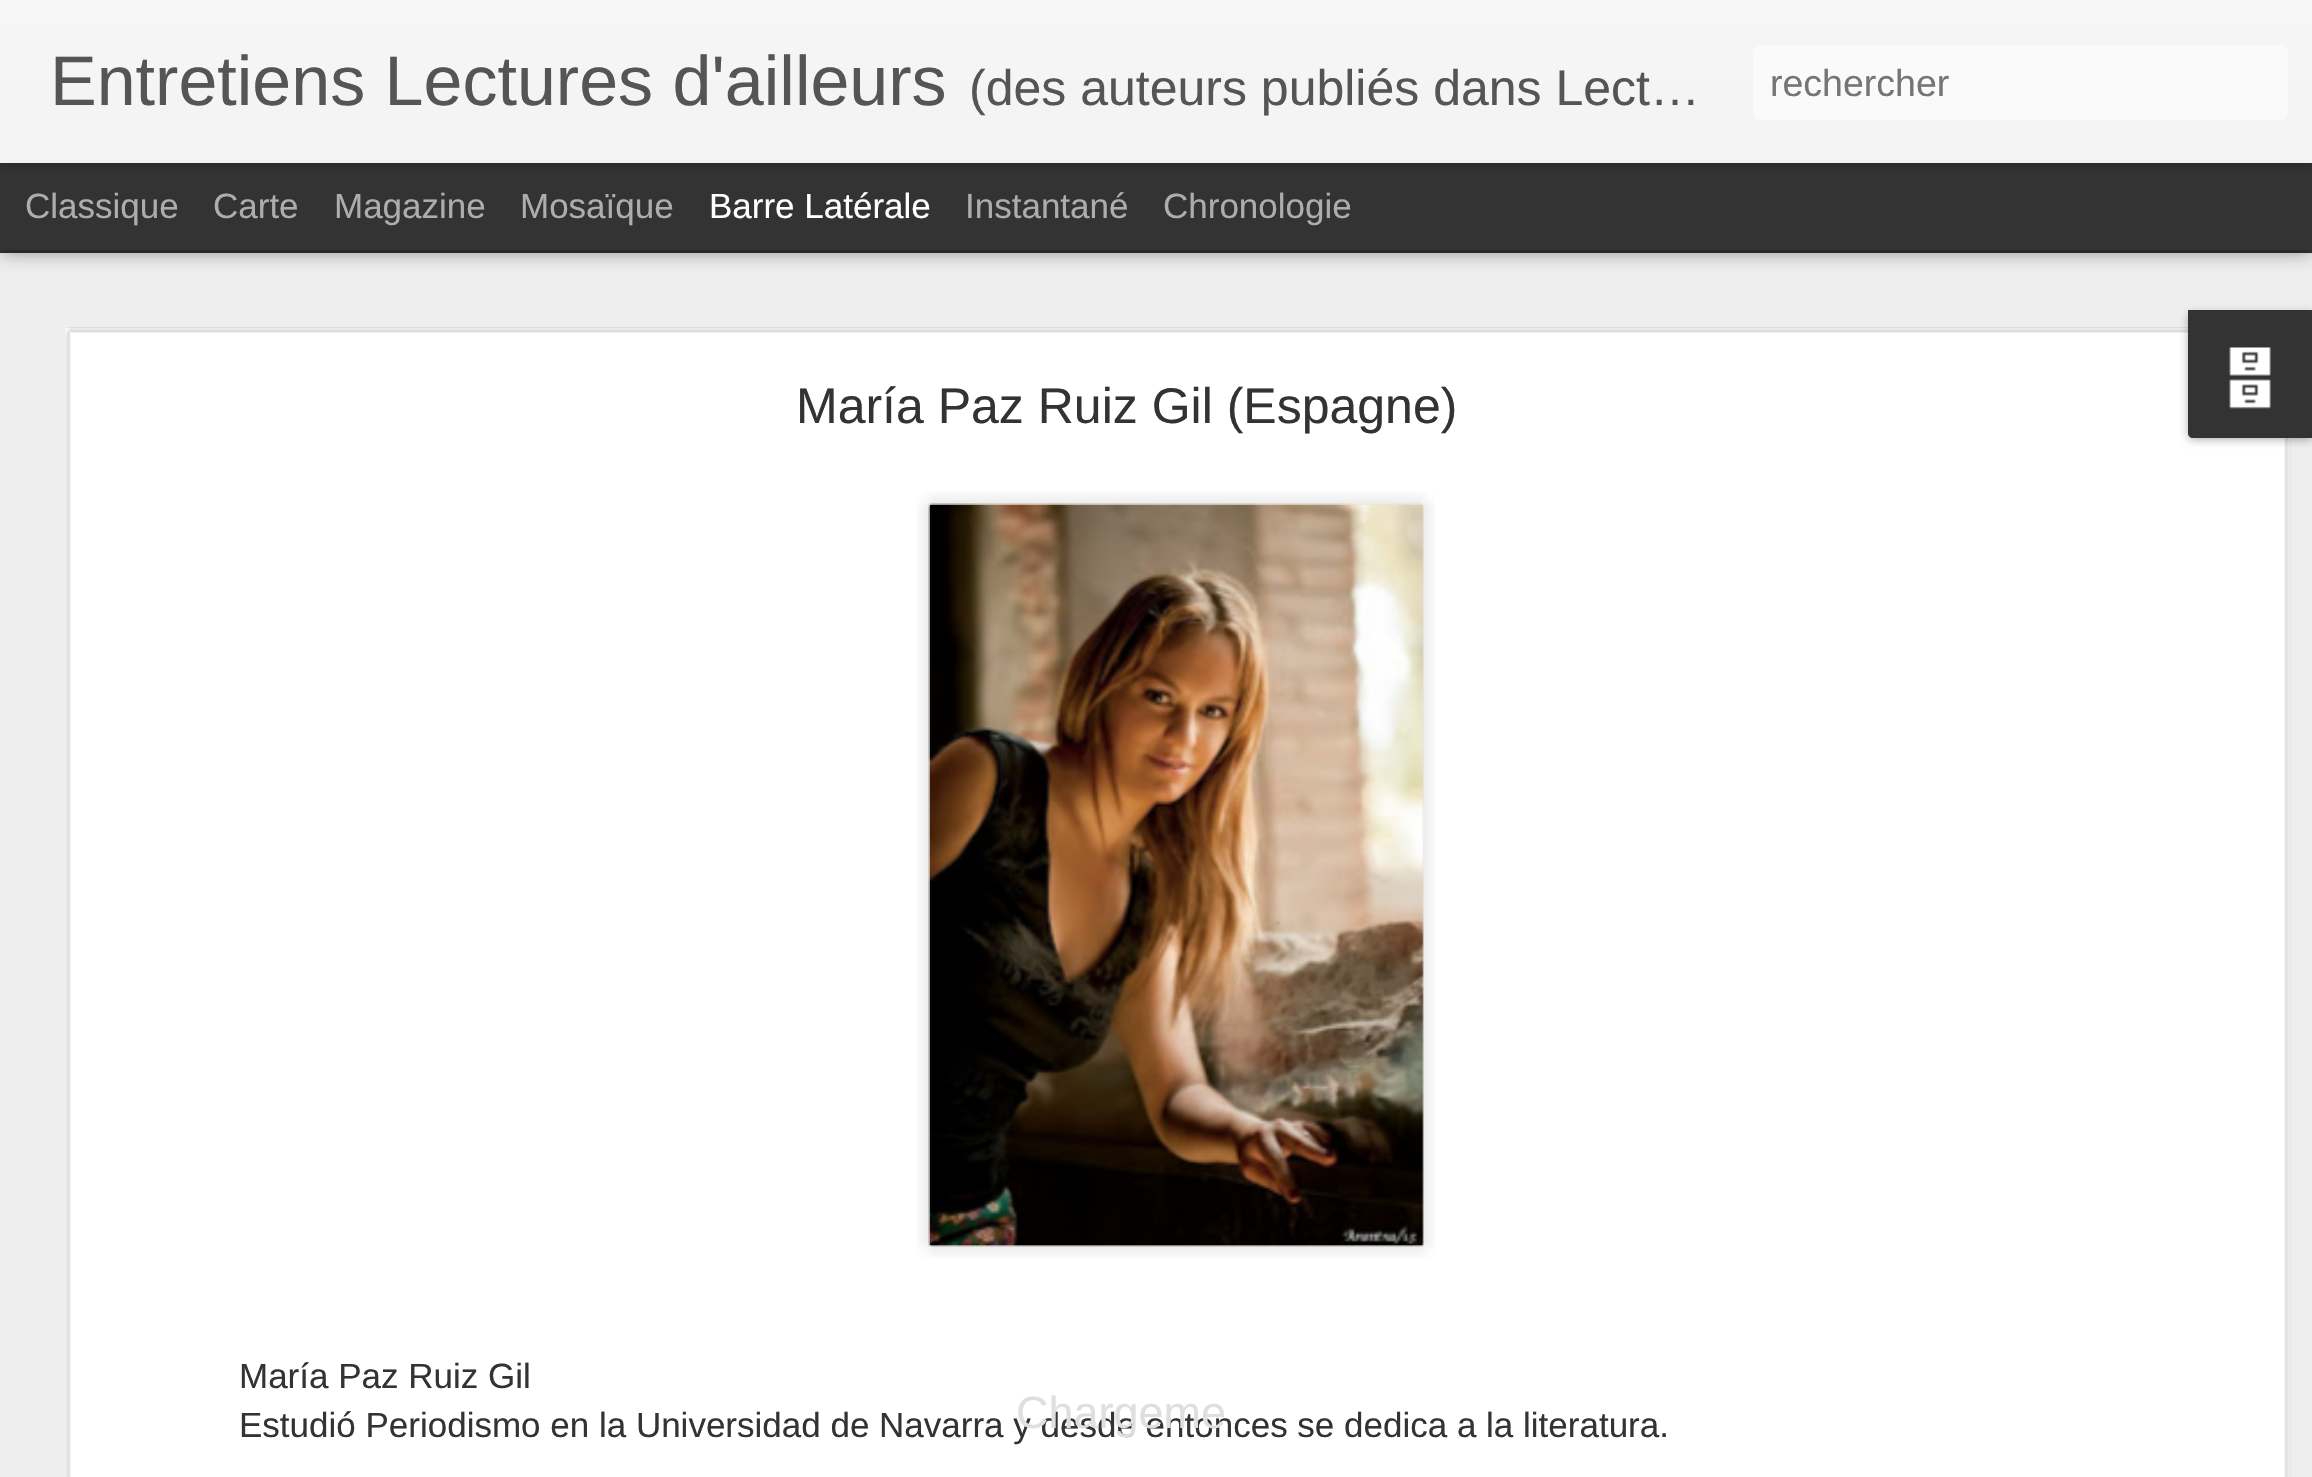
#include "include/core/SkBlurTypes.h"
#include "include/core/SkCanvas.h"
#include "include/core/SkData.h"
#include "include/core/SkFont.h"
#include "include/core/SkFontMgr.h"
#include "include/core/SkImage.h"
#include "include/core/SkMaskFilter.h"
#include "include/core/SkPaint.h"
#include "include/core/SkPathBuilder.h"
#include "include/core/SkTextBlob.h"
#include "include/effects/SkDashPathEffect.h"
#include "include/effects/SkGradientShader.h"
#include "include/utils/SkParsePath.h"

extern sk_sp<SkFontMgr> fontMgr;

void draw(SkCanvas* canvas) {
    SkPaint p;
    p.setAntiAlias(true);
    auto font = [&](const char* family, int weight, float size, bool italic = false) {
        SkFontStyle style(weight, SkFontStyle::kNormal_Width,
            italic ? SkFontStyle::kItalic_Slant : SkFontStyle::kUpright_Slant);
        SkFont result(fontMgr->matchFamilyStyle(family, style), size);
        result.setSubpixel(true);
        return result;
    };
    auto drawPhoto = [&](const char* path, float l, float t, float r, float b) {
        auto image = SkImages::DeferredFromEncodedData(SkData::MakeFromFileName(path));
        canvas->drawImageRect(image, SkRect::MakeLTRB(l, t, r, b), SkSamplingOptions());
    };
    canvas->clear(0xFF333333);
    p.setColor(0xFFEEEEEE);
    canvas->drawRect(SkRect::MakeLTRB(0, 253, 2312, 1477), p);
    p.setColor(0x80000000);
    p.setMaskFilter(SkMaskFilter::MakeBlur(kNormal_SkBlurStyle, 10));
    canvas->drawRect(SkRect::MakeLTRB(0, 163, 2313, 250), p);
    p.setMaskFilter(nullptr);
    p.setColor(0xFF333333);
    canvas->drawRect(SkRect::MakeLTRB(0, 163, 2312, 250), p);
    p.setColor(0x4D000000);
    p.setMaskFilter(SkMaskFilter::MakeBlur(kNormal_SkBlurStyle, 6));
    canvas->drawRect(SkRect::MakeLTRB(0, 0, 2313, 163), p);
    p.setMaskFilter(nullptr);
    {
        const SkColor colors[] = {0xFFF6F6F6, 0xFFF3F3F3};
        const float stops[] = {0, 1};
        const SkPoint ends[] = {{0, 0}, {0, 163}};
        p.setShader(SkGradientShader::MakeLinear(ends, colors, stops, 2, SkTileMode::kClamp));
        p.setAlpha(255);
    }
    canvas->drawRect(SkRect::MakeLTRB(0, 0, 2312, 163), p);
    auto font1 = font("Liberation Sans", 400, 70);
    p.setShader(nullptr);
    p.setColor(0xFF555555);
    canvas->drawString("Entretiens Lectures d'ailleurs", 50, 105, font1, p);
    auto font2 = font("Liberation Sans", 400, 50);
    canvas->drawString("(des auteurs publiés dans Lect…", 969, 105, font2, p);
    p.setColor(0xFFFAFAFA);
    canvas->drawRoundRect(SkRect::MakeLTRB(1753, 45, 2288, 120), 8, 8, p);
    auto font3 = font("Liberation Sans", 400, 37.5f);
    p.setColor(0xFF757575);
    canvas->drawString("rechercher", 1770, 96, font3, p);
    auto font4 = font("Liberation Sans", 400, 35);
    p.setColor(0xFFADADAD);
    {
        const struct { const char* s; float x, y; } items[] = {
            {"Classique", 25, 218},
            {"Carte", 213, 218},
            {"Magazine", 334, 218},
            {"Mosaïque", 520, 218},
        };
        for (auto [s, x, y] : items) {
            canvas->drawString(s, x, y, font4, p);
        }
    }
    p.setColor(0xFFFFFFFF);
    canvas->drawString("Barre Latérale", 709, 218, font4, p);
    p.setColor(0xFFADADAD);
    canvas->drawString("Instantané", 965, 218, font4, p);
    canvas->drawString("Chronologie", 1163, 218, font4, p);
    p.setColor(0xFFFFFFFF);
    canvas->drawRect(SkRect::MakeLTRB(65, 328, 2290, 1477), p);
    drawPhoto("media/1.png", 65, 327, 2291, 1477);
    p.setColor(0xFF333333);
    canvas->drawString("María Paz Ruiz Gil (Espagne)", 796, 423, font2, p);
    drawPhoto("media/2.png", 917, 492, 1435, 1258);
    drawPhoto("media/3.png", 928, 503, 1424, 1247);
    canvas->drawString("María Paz Ruiz Gil", 239, 1388, font4, p);
    canvas->drawString("Estudió Periodismo en la Universidad de Navarra y desde entonces se dedica a la literatura.", 239, 1437, font4, p);
    p.setColor(0x4D000000);
    p.setMaskFilter(SkMaskFilter::MakeBlur(kNormal_SkBlurStyle, 4));
    canvas->drawRoundRect(SkRect::MakeLTRB(2188, 313, 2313, 440), 5, 5, p);
    p.setMaskFilter(nullptr);
    p.setColor(0xFF333333);
    canvas->drawPath(SkPathBuilder().moveTo(2188, 310).lineTo(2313, 310).lineTo(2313, 438).lineTo(2193, 438).cubicTo(2190, 438, 2188, 436, 2188, 433).close().detach(), p);
    drawPhoto("media/4.png", 2229, 347, 2271, 409);
    auto font5 = font("Liberation Sans", 400, 45);
    p.setColor(0xFFDFDFDF);
    canvas->drawString("Chargeme", 1016, 1428, font5, p);
}
